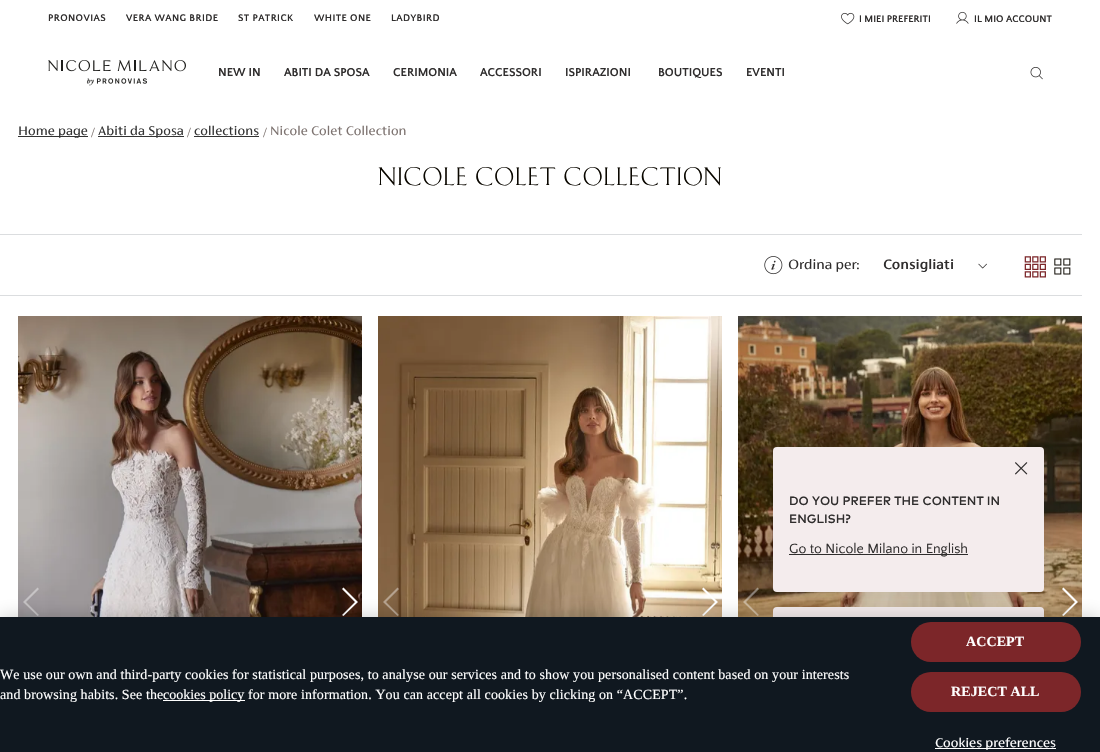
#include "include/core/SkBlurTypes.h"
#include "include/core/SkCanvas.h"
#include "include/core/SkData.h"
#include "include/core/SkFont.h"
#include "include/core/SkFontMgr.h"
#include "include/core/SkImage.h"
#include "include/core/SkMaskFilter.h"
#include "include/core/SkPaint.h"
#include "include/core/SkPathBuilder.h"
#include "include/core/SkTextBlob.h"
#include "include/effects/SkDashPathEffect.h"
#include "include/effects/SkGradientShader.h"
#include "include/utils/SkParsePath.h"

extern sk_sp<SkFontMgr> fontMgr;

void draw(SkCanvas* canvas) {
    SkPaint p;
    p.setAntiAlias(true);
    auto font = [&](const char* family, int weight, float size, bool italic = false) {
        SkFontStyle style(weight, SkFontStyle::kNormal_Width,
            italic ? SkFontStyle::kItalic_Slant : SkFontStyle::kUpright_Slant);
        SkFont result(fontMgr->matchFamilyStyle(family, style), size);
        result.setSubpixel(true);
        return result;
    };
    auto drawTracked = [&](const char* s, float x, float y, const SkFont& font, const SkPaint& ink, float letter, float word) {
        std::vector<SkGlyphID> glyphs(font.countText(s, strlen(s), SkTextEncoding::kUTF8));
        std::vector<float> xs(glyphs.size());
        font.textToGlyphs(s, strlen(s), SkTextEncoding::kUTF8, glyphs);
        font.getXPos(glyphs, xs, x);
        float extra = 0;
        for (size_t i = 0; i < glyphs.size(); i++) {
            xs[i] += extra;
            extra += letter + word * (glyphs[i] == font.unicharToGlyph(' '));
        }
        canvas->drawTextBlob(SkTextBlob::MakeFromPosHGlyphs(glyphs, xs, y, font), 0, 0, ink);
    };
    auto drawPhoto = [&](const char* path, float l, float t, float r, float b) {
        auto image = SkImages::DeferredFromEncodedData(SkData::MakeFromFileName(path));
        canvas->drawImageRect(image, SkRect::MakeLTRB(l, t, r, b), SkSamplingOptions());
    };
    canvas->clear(0xFFFFFFFF);
    auto font1 = font("Quattrocento Sans", 700, 10);
    p.setColor(0xFF2F2D2D);
    {
        const struct { const char* s; float x, y; } items[] = {
            {"PRONOVIAS", 48, 21},
            {"VERA WANG BRIDE", 126, 21},
            {"ST PATRICK", 238, 21},
            {"WHITE ONE", 314, 21},
            {"LADYBIRD", 391, 21},
        };
        for (auto [s, x, y] : items) {
            drawTracked(s, x, y, font1, p, 0.4f, 0);
        }
    }
    drawPhoto("media/1.png", 841, 12, 855, 25);
    canvas->drawString("I MIEI PREFERITI", 859, 22, font1, p);
    drawPhoto("media/2.png", 956, 11, 969, 24);
    canvas->drawString("IL MIO ACCOUNT", 974, 22, font1, p);
    drawPhoto("media/3.png", 48, 60, 186, 86);
    auto font2 = font("Quattrocento Sans", 700, 12);
    {
        const struct { const char* s; float x, y; } items[] = {
            {"NEW IN", 218, 76},
            {"ABITI DA SPOSA", 284, 76},
            {"CERIMONIA", 393, 76},
            {"ACCESSORI", 480, 76},
            {"ISPIRAZIONI", 565, 76},
            {"BOUTIQUES", 658, 76},
            {"EVENTI", 746, 76},
        };
        for (auto [s, x, y] : items) {
            canvas->drawString(s, x, y, font2, p);
        }
    }
    drawPhoto("media/4.png", 1030, 67, 1043, 80);
    p.setColor(0xFF333333);
    canvas->drawRect(SkRect::MakeLTRB(18, 136, 88, 137), p);
    auto font3 = font("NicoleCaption", 400, 14);
    drawTracked("Home page", 18, 135, font3, p, 0.1f, 0);
    auto font4 = font("Liberation Serif", 400, 14);
    p.setColor(0xFF7D7370);
    drawTracked("/", 91, 137, font4, p, 0.1f, 0);
    p.setColor(0xFF333333);
    canvas->drawRect(SkRect::MakeLTRB(98, 136, 184, 137), p);
    drawTracked("Abiti da Sposa", 98, 135, font3, p, 0.1f, 0);
    p.setColor(0xFF7D7370);
    drawTracked("/", 187, 137, font4, p, 0.1f, 0);
    p.setColor(0xFF333333);
    drawTracked("collections", 194, 135, font3, p, 0.1f, 0);
    canvas->drawRect(SkRect::MakeLTRB(194, 136, 259, 137), p);
    p.setColor(0xFF7D7370);
    drawTracked("/", 263, 137, font4, p, 0.1f, 0);
    drawTracked("Nicole Colet Collection", 270, 135, font3, p, 0.1f, 0);
    auto font5 = font("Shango", 400, 25);
    p.setColor(0xFF0A0700);
    drawTracked("Nicole Colet Collection", 378, 185, font5, p, 0.8f, 0);
    p.setColor(0xFFDBDDDF);
    canvas->drawRect(SkRect::MakeLTRB(0, 234, 1082, 235), p);
    canvas->drawRect(SkRect::MakeLTRB(0, 295, 1082, 296), p);
    drawPhoto("media/5.png", 764, 256, 783, 275);
    auto font6 = font("NicoleCaption", 400, 15);
    p.setColor(0xFF2F2D2D);
    canvas->drawString("Ordina per:", 788, 269, font6, p);
    auto font7 = font("NicoleCaption", 700, 15);
    canvas->drawString("Consigliati", 883, 269, font7, p);
    drawPhoto("media/6.png", 978, 263, 987, 269);
    drawPhoto("media/7.png", 1024, 256, 1046, 278);
    drawPhoto("media/8.png", 1054, 258, 1071, 275);
    drawPhoto("media/9.png", 18, 316, 362, 617);
    p.setColor(0x66FFFFFF);
    canvas->drawPath(SkPathBuilder().moveTo(26, 602).lineTo(39, 589).lineTo(37.5f, 587.5f).lineTo(23, 602).lineTo(37.5f, 616).lineTo(39, 615).close().detach(), p);
    p.setColor(0xFFFFFFFF);
    canvas->drawPath(SkPathBuilder().moveTo(343.5f, 587.5f).lineTo(342, 589).lineTo(355, 602).lineTo(342, 615).lineTo(343.5f, 616).lineTo(358, 602).close().detach(), p);
    drawPhoto("media/10.png", 378, 316, 722, 617);
    p.setColor(0x66FFFFFF);
    canvas->drawPath(SkPathBuilder().moveTo(386, 602).lineTo(399, 589).lineTo(397.5f, 587.5f).lineTo(383, 602).lineTo(397.5f, 616).lineTo(399, 615).close().detach(), p);
    p.setColor(0xFFFFFFFF);
    canvas->drawPath(SkPathBuilder().moveTo(703.5f, 587.5f).lineTo(702, 589).lineTo(715, 602).lineTo(702, 615).lineTo(703.5f, 616).lineTo(718, 602).close().detach(), p);
    drawPhoto("media/11.png", 738, 316, 1082, 617);
    p.setColor(0x66FFFFFF);
    canvas->drawPath(SkPathBuilder().moveTo(746, 602).lineTo(759, 589).lineTo(757.5f, 587.5f).lineTo(743, 602).lineTo(757.5f, 616).lineTo(759, 615).close().detach(), p);
    p.setColor(0xFFFFFFFF);
    canvas->drawPath(SkPathBuilder().moveTo(1063.5f, 587.5f).lineTo(1062, 589).lineTo(1075, 602).lineTo(1062, 615).lineTo(1063.5f, 616).lineTo(1078, 602).close().detach(), p);
    p.setColor(0xFFF4ECED);
    canvas->drawRoundRect(SkRect::MakeLTRB(773, 607, 1044, 704), 4, 4, p);
    p.setColor(0x1A5E5A5B);
    p.setMaskFilter(SkMaskFilter::MakeBlur(kNormal_SkBlurStyle, 12.5f));
    canvas->drawRoundRect(SkRect::MakeLTRB(773, 447, 1044, 592), 4, 4, p);
    p.setMaskFilter(nullptr);
    p.setColor(0xFFF4ECED);
    canvas->drawRoundRect(SkRect::MakeLTRB(773, 447, 1044, 592), 4, 4, p);
    drawPhoto("media/12.png", 1015, 462, 1028, 475);
    auto font8 = font("Quattrocento Sans", 400, 12);
    p.setColor(0xFF2F2D2D);
    canvas->drawString("DO YOU PREFER THE CONTENT IN", 789, 505, font8, p);
    canvas->drawString("ENGLISH?", 789, 523, font8, p);
    canvas->drawRect(SkRect::MakeLTRB(789, 554, 968, 555), p);
    auto font9 = font("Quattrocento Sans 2", 400, 14);
    canvas->drawString("Go to Nicole Milano in English", 789, 553, font9, p);
    p.setColor(0x33000000);
    p.setMaskFilter(SkMaskFilter::MakeBlur(kNormal_SkBlurStyle, 9));
    canvas->drawRect(SkRect::MakeLTRB(0, 617, 1100, 752), p);
    p.setMaskFilter(nullptr);
    p.setColor(0xFF101820);
    canvas->drawRect(SkRect::MakeLTRB(0, 617, 1100, 752), p);
    p.setColor(0xFFFFFFFF);
    drawTracked("We use our own and third-party cookies for statistical purposes, to analyse our services and to show you personalised content based on your interests", 0, 679, font4, p, 0.1f, 0);
    drawTracked("and browsing habits. See the", 0, 699, font4, p, 0.1f, 0);
    canvas->drawRect(SkRect::MakeLTRB(163, 700, 245, 701), p);
    canvas->drawString("cookies policy", 163, 699, font4, p);
    drawTracked("for more information. You can accept all cookies by clicking on “ACCEPT”.", 248, 699, font4, p, 0.1f, 0);
    p.setColor(0xFF7C2629);
    canvas->drawRoundRect(SkRect::MakeLTRB(911, 622, 1081, 662), 20, 20, p);
    auto font10 = font("Liberation Serif", 700, 14);
    p.setColor(0xFFFFFFFF);
    drawTracked("ACCEPT", 966, 646, font10, p, 0.1f, 0);
    p.setColor(0xFF7C2629);
    canvas->drawRoundRect(SkRect::MakeLTRB(911, 672, 1081, 712), 20, 20, p);
    p.setColor(0xFFFFFFFF);
    drawTracked("REJECT ALL", 951, 696, font10, p, 0.1f, 0);
    canvas->drawRect(SkRect::MakeLTRB(935, 748, 1056, 749), p);
    drawTracked("Cookies preferences", 935, 747, font3, p, 0.1f, 0);
}
